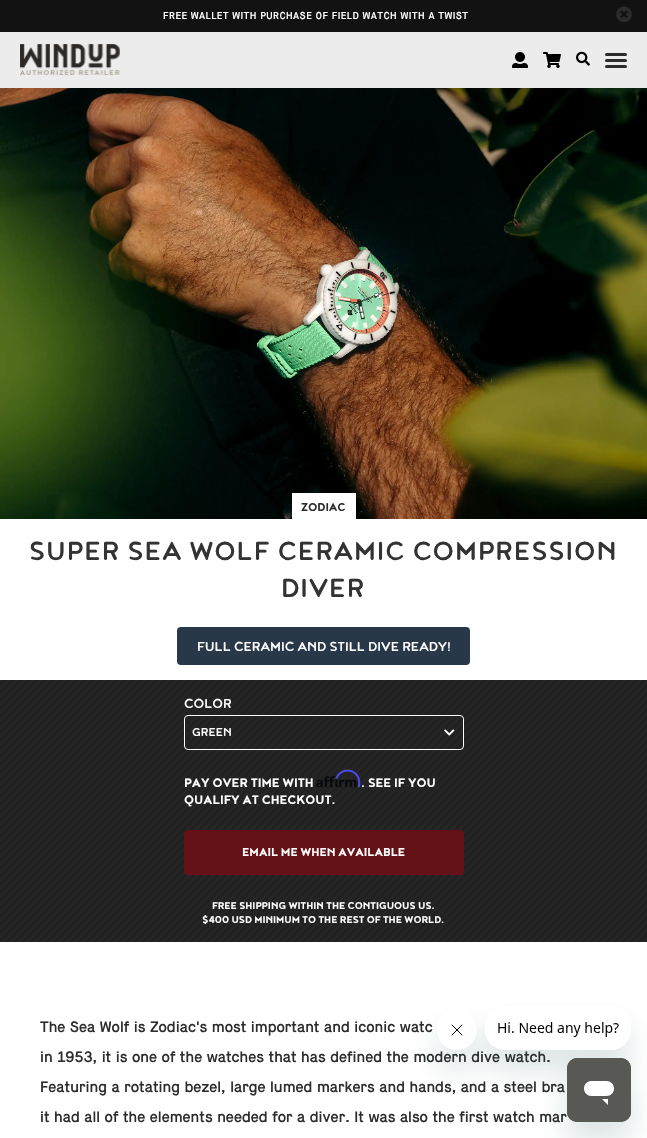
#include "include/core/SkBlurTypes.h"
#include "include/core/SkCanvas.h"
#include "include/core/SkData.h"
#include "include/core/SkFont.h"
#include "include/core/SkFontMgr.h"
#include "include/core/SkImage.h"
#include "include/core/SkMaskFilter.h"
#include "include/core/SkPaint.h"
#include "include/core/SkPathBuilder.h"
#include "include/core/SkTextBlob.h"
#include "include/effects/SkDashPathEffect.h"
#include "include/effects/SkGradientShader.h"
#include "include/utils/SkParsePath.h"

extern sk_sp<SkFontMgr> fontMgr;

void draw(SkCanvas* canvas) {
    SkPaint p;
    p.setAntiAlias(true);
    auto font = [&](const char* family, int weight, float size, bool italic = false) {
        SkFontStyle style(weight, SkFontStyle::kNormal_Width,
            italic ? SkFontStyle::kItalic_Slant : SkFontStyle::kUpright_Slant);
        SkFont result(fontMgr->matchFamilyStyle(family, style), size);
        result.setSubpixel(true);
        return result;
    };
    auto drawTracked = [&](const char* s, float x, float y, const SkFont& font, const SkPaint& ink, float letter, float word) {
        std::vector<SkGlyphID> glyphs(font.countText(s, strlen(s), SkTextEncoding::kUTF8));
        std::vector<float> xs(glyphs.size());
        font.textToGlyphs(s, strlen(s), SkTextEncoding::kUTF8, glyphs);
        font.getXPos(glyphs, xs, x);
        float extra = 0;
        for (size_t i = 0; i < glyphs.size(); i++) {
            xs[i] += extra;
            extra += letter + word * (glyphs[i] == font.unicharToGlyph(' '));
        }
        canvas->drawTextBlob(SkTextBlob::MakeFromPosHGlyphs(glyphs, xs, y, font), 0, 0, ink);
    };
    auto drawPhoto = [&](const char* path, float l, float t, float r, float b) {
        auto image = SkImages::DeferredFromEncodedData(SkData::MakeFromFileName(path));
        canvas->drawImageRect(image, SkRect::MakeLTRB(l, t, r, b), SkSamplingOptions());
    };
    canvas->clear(0xFFFFFFFF);
    p.setColor(0xFF121212);
    canvas->drawRect(SkRect::MakeLTRB(0, 0, 647, 32), p);
    auto font1 = font("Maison", 400, 10);
    p.setColor(0xFFFFFFFF);
    drawTracked("FREE WALLET WITH PURCHASE OF FIELD WATCH WITH A TWIST", 163, 19, font1, p, 0.4f, 0);
    drawPhoto("media/1.png", 616, 6, 632, 22);
    p.setColor(0xFFECECEC);
    canvas->drawRect(SkRect::MakeLTRB(0, 32, 647, 88), p);
    drawPhoto("media/2.png", 20, 44, 120, 75);
    drawPhoto("media/3.png", 512, 52, 528, 68);
    drawPhoto("media/4.png", 543, 52, 561, 68);
    drawPhoto("media/5.png", 576, 51, 590, 66);
    p.setColor(0xFF2C2C2C);
    canvas->drawRoundRect(SkRect::MakeLTRB(605, 59, 627, 62), 1.5f, 1.5f, p);
    canvas->drawRoundRect(SkRect::MakeLTRB(605, 53, 627, 56), 1.5f, 1.5f, p);
    canvas->drawRoundRect(SkRect::MakeLTRB(605, 65, 627, 68), 1.5f, 1.5f, p);
    drawPhoto("media/6.png", 0, 88, 647, 519);
    p.setColor(0xFFFFFFFF);
    canvas->drawRect(SkRect::MakeLTRB(292, 493, 356, 519), p);
    auto font2 = font("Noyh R", 700, 14);
    p.setColor(0xFF2C2C2C);
    canvas->drawString("ZODIAC", 301, 511, font2, p);
    auto font3 = font("Noyh R", 500, 32);
    p.setColor(0xFF333333);
    drawTracked("SUPER SEA WOLF CERAMIC COMPRESSION", 29, 560, font3, p, 1, 0);
    drawTracked("DIVER", 281, 597, font3, p, 1, 0);
    p.setColor(0xFF283849);
    canvas->drawRoundRect(SkRect::MakeLTRB(177, 627, 470, 665), 4, 4, p);
    auto font4 = font("Noyh R", 500, 16);
    p.setColor(0xFFFFFFFF);
    canvas->drawString("FULL CERAMIC AND STILL DIVE READY!", 197, 651, font4, p);
    drawPhoto("media/7.png", 0, 680, 647, 942);
    canvas->drawString("COLOR", 184, 708, font4, p);
    drawPhoto("media/8.png", 444, 729, 455, 736);
    p.setStyle(SkPaint::kStroke_Style);
    p.setStrokeWidth(1);
    canvas->drawRoundRect(SkRect::MakeLTRB(184.5f, 715.5f, 463.5f, 749.5f), 3.5f, 3.5f, p);
    auto font5 = font("Noyh R", 500, 14);
    p.setStyle(SkPaint::kFill_Style);
    canvas->drawString("GREEN", 192, 736, font5, p);
    auto font6 = font("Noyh", 700, 15);
    canvas->drawString("PAY OVER TIME WITH", 184, 787, font6, p);
    drawPhoto("media/10.png", 316, 776, 357, 788);
    drawPhoto("media/9.png", 335, 769, 361, 788);
    canvas->drawString(". SEE IF YOU", 361, 787, font6, p);
    canvas->drawString("QUALIFY AT CHECKOUT.", 184, 804, font6, p);
    p.setColor(0xFF651118);
    canvas->drawRoundRect(SkRect::MakeLTRB(184, 830, 464, 875), 4, 4, p);
    auto font7 = font("Noyh", 700, 14);
    p.setColor(0xFFFFFFFF);
    canvas->drawString("EMAIL ME WHEN AVAILABLE", 242, 856, font7, p);
    auto font8 = font("Noyh", 700, 12);
    canvas->drawString("FREE SHIPPING WITHIN THE CONTIGUOUS US.", 212, 909, font8, p);
    canvas->drawString("$400 USD MINIMUM TO THE REST OF THE WORLD.", 202, 923, font8, p);
    auto font9 = font("Maison", 400, 15);
    p.setColor(0xFF2C2C2C);
    {
        const struct { const char* s; float x, y; } items[] = {
            {"The Sea Wolf is Zodiac's most important and iconic watc", 40, 1032},
            {"in 1953, it is one of the watches that has defined the modern dive watch.", 40, 1062},
            {"Featuring a rotating bezel, large lumed markers and hands, and a steel bra", 40, 1092},
            {"it had all of the elements needed for a diver. It was also the first watch mar", 40, 1122},
        };
        for (auto [s, x, y] : items) {
            canvas->drawString(s, x, y, font9, p);
        }
    }
    canvas->save();
    canvas->clipPath(SkPathBuilder(SkPathFillType::kEvenOdd).moveTo(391, 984).lineTo(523, 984).lineTo(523, 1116).lineTo(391, 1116).close().moveTo(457, 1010).cubicTo(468, 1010, 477, 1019, 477, 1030).cubicTo(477, 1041, 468, 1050, 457, 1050).cubicTo(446, 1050, 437, 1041, 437, 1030).cubicTo(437, 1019, 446, 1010, 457, 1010).close().detach(), true);
    p.setColor(0x2617494D);
    p.setMaskFilter(SkMaskFilter::MakeBlur(kNormal_SkBlurStyle, 15));
    canvas->drawRoundRect(SkRect::MakeLTRB(437, 1030, 477, 1070), 20, 20, p);
    p.setMaskFilter(nullptr);
    canvas->restore();
    drawPhoto("media/12.png", 437, 1021, 477, 1036);
    canvas->save();
    canvas->clipPath(SkPathBuilder(SkPathFillType::kEvenOdd).moveTo(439, 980).lineTo(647, 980).lineTo(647, 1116).lineTo(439, 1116).close().moveTo(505, 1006).lineTo(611, 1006).cubicTo(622, 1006, 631, 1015, 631, 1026).lineTo(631, 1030).cubicTo(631, 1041, 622, 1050, 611, 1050).lineTo(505, 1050).cubicTo(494, 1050, 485, 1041, 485, 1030).lineTo(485, 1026).cubicTo(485, 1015, 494, 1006, 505, 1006).close().detach(), true);
    p.setMaskFilter(SkMaskFilter::MakeBlur(kNormal_SkBlurStyle, 15));
    canvas->drawRoundRect(SkRect::MakeLTRB(485, 1026, 631, 1070), 20, 20, p);
    p.setMaskFilter(nullptr);
    canvas->restore();
    drawPhoto("media/11.png", 485, 1021, 625, 1050);
    p.setMaskFilter(SkMaskFilter::MakeBlur(kNormal_SkBlurStyle, 15));
    canvas->drawRoundRect(SkRect::MakeLTRB(567, 1078, 631, 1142), 10, 10, p);
    p.setMaskFilter(nullptr);
    drawPhoto("media/13.png", 567, 1058, 631, 1122);
}
